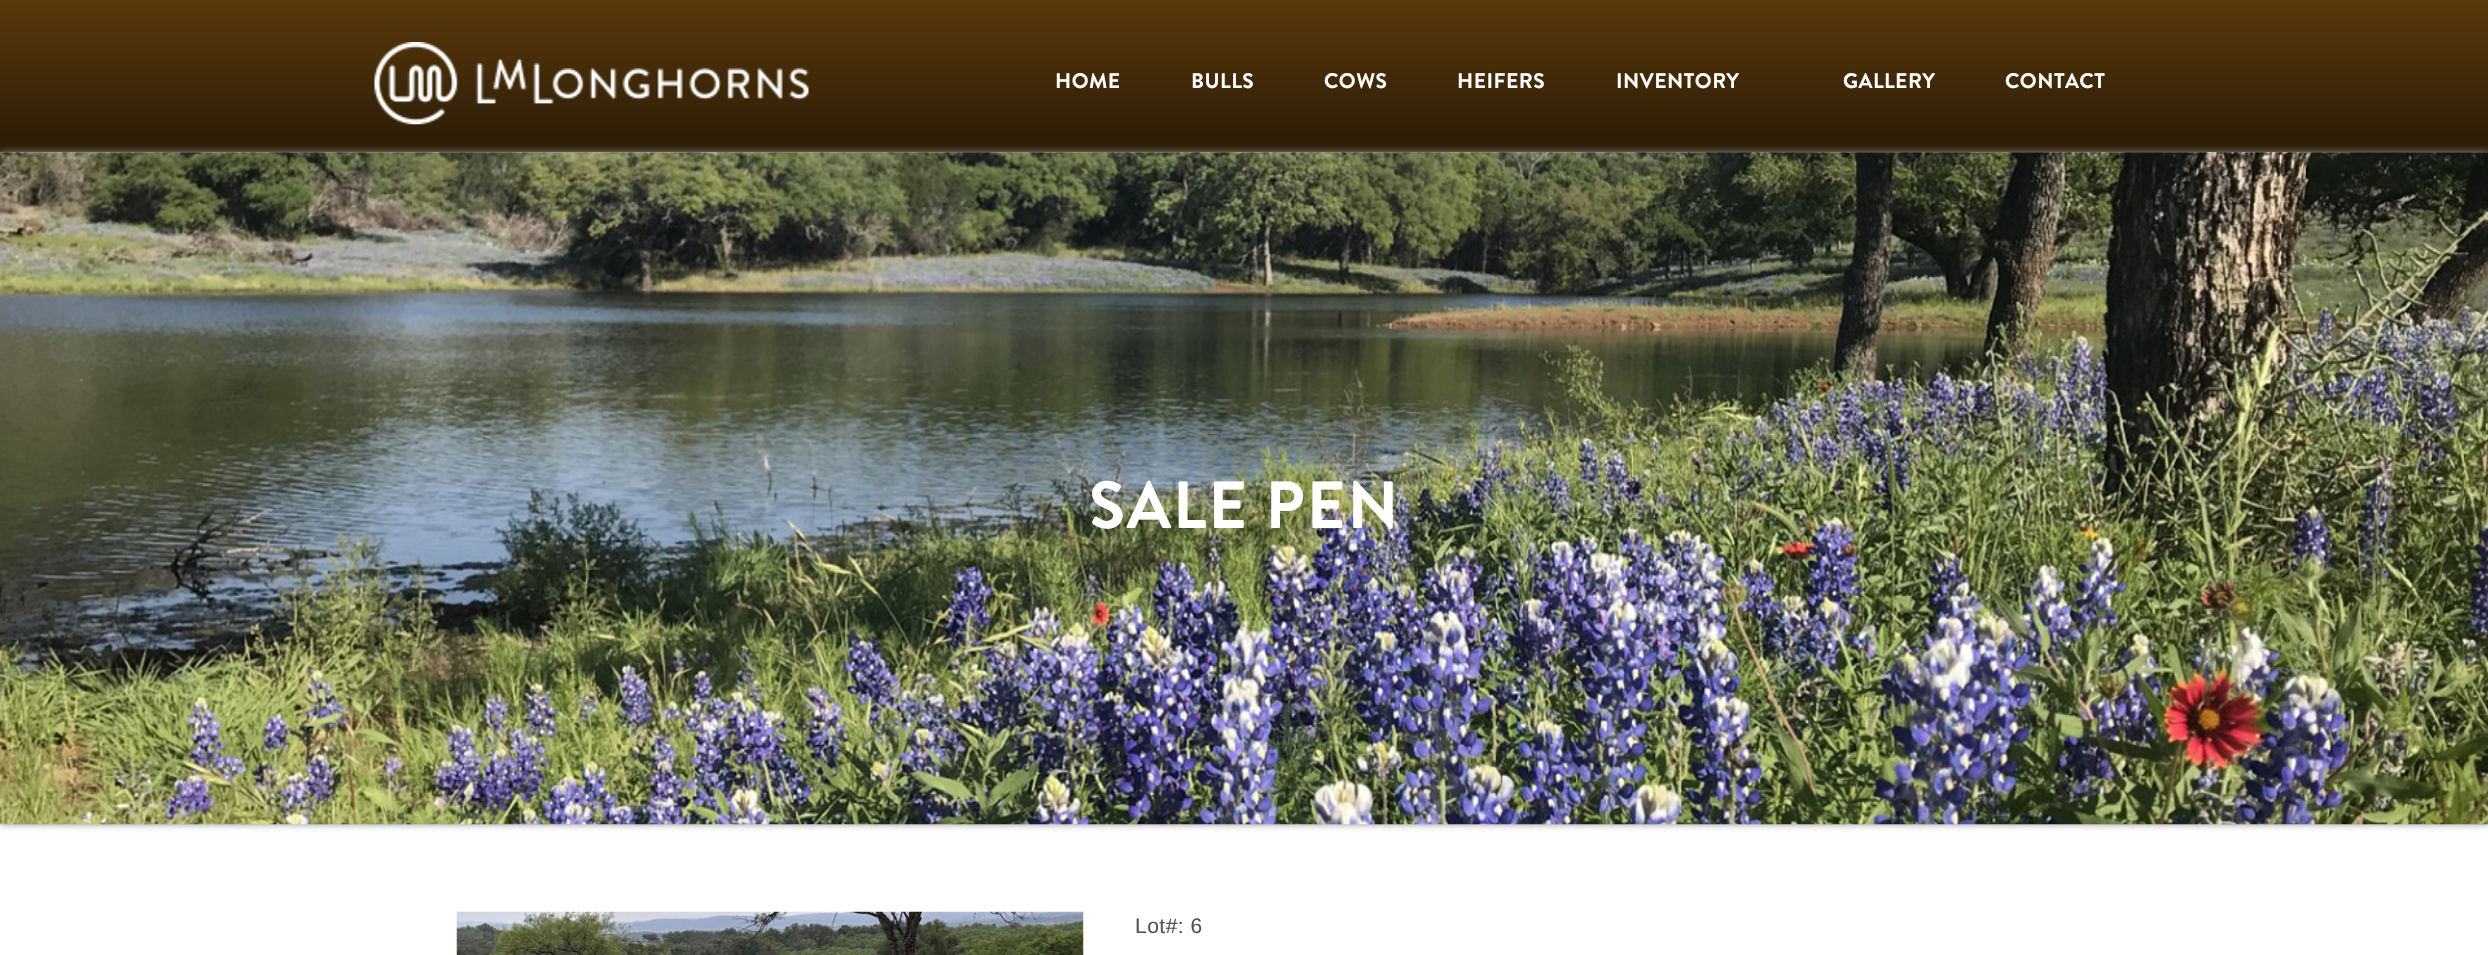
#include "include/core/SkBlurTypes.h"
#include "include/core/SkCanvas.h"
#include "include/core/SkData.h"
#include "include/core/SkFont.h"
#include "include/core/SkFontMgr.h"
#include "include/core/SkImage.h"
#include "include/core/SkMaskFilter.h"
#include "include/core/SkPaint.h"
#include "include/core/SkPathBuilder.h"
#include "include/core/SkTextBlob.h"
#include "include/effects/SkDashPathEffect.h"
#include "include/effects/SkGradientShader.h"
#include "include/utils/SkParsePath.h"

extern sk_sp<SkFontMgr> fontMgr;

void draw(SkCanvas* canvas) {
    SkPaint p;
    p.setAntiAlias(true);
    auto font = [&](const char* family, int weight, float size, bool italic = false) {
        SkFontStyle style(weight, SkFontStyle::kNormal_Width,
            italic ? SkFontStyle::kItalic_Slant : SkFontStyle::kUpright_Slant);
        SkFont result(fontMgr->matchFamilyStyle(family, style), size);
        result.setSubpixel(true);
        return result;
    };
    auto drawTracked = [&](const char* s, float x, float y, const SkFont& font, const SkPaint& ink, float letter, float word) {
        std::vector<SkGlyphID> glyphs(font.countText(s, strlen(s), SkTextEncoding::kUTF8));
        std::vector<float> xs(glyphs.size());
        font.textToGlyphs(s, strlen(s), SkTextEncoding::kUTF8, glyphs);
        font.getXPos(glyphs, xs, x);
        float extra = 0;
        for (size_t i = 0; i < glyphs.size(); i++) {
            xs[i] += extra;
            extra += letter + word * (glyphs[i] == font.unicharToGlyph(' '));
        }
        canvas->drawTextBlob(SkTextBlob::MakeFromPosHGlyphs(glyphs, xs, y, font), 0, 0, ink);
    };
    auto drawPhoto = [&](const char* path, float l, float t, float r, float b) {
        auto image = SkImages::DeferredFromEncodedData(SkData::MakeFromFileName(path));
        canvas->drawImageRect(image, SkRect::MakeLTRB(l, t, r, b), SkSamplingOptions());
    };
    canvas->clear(0xFFFFFFFF);
    {
        const SkColor colors[] = {0xFF5A390C, 0xFF2A1B06};
        const float stops[] = {0, 1};
        const SkPoint ends[] = {{1244, 0}, {1244, 152}};
        p.setShader(SkGradientShader::MakeLinear(ends, colors, stops, 2, SkTileMode::kClamp));
        p.setAlpha(255);
    }
    canvas->drawRect(SkRect::MakeLTRB(0, 0, 2488, 152), p);
    drawPhoto("media/1.png", 374, 42, 809, 125);
    auto font1 = font("Brandon Grotesque", 700, 21);
    p.setShader(nullptr);
    p.setColor(0xFFFFFFFF);
    {
        const struct { const char* s; float x, y; } items[] = {
            {"HOME", 1055, 88},
            {"BULLS", 1191, 88},
            {"COWS", 1324, 88},
            {"HEIFERS", 1457, 88},
            {"INVENTORY", 1616, 88},
            {"GALLERY", 1843, 88},
            {"CONTACT", 2005, 88},
        };
        for (auto [s, x, y] : items) {
            drawTracked(s, x, y, font1, p, 0.5f, 0);
        }
    }
    p.setColor(0xFF888888);
    p.setMaskFilter(SkMaskFilter::MakeBlur(kNormal_SkBlurStyle, 3.5f));
    canvas->drawRect(SkRect::MakeLTRB(0, 152, 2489, 824), p);
    p.setMaskFilter(nullptr);
    drawPhoto("media/2.png", 0, 152, 2488, 825);
    auto font2 = font("Brandon Grotesque", 700, 66.5f);
    p.setColor(0xFFFFFFFF);
    drawTracked("SALE PEN", 1089, 528, font2, p, 1.75f, 0);
    drawPhoto("media/3.png", 456, 911, 1084, 955);
    auto font3 = font("Liberation Sans", 400, 21);
    p.setColor(0xFF525253);
    drawTracked("Lot#: 6", 1135, 933, font3, p, 0.5f, 0);
}
